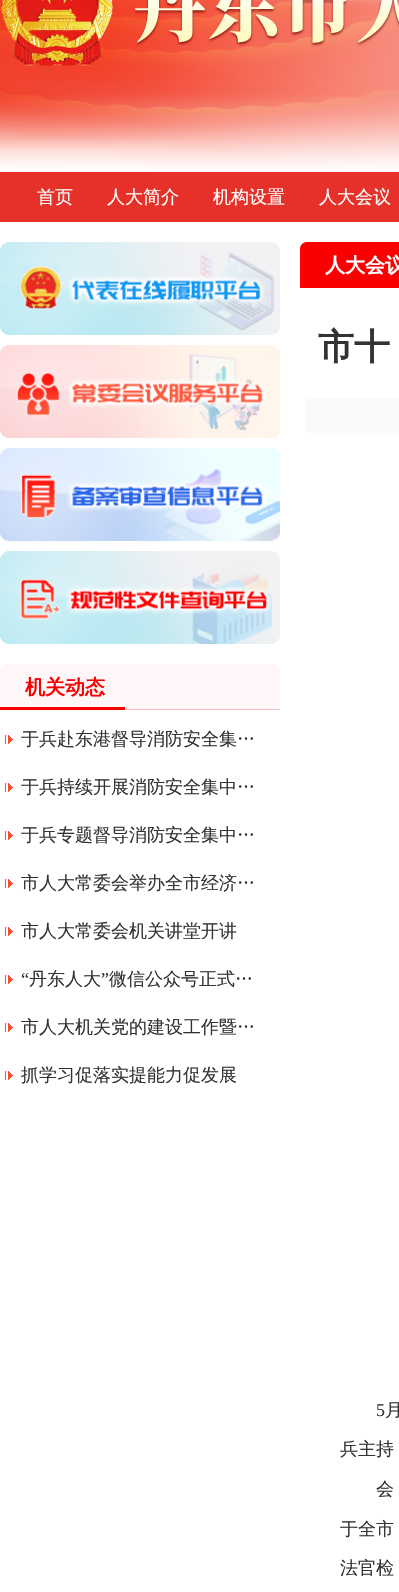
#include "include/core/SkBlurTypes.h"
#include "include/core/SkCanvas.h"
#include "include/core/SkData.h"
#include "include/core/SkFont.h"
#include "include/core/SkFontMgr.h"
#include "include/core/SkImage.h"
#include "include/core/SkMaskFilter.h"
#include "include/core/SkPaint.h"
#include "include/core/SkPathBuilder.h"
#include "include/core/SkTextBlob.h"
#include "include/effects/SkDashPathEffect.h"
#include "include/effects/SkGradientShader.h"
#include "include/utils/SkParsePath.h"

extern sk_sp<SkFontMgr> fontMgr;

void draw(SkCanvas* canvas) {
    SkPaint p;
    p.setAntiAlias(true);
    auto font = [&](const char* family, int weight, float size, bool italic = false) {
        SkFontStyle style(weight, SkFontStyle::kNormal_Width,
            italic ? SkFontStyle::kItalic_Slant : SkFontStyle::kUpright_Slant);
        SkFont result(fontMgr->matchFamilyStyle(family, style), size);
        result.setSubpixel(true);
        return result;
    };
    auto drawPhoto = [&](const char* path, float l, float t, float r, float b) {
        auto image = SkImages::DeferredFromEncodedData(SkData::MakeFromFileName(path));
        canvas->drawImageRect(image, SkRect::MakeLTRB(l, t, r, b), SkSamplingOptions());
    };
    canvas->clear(0xFFFFFFFF);
    drawPhoto("media/1.png", 0, 0, 399, 170);
    p.setColor(0xFFE53129);
    canvas->drawRect(SkRect::MakeLTRB(0, 172, 399, 222), p);
    auto font1 = font("WenQuanYi Zen Hei", 500, 18);
    p.setColor(0xFFFFFFFF);
    {
        const struct { const char* s; float x, y; } items[] = {
            {"首页", 37, 203},
            {"人大简介", 107, 203},
            {"机构设置", 213, 203},
            {"人大会议", 319, 203},
        };
        for (auto [s, x, y] : items) {
            canvas->drawString(s, x, y, font1, p);
        }
    }
    drawPhoto("media/2.png", 0, 242, 280, 335);
    drawPhoto("media/3.png", 0, 345, 280, 438);
    drawPhoto("media/4.png", 0, 448, 280, 541);
    drawPhoto("media/5.png", 0, 551, 280, 644);
    drawPhoto("media/6.png", 0, 664, 280, 710);
    p.setColor(0xFFFA0000);
    canvas->drawRect(SkRect::MakeLTRB(0, 707, 125, 710), p);
    auto font2 = font("WenQuanYi Zen Hei", 700, 20);
    canvas->drawString("机关动态", 25, 694, font2, p);
    drawPhoto("media/7.png", 5, 735, 13, 744);
    p.setColor(0xFF333333);
    canvas->drawString("于兵赴东港督导消防安全集…", 21, 745, font1, p);
    drawPhoto("media/7.png", 5, 783, 13, 792);
    canvas->drawString("于兵持续开展消防安全集中…", 21, 793, font1, p);
    drawPhoto("media/7.png", 5, 831, 13, 840);
    canvas->drawString("于兵专题督导消防安全集中…", 21, 841, font1, p);
    drawPhoto("media/7.png", 5, 879, 13, 888);
    canvas->drawString("市人大常委会举办全市经济…", 21, 889, font1, p);
    drawPhoto("media/7.png", 5, 927, 13, 936);
    canvas->drawString("市人大常委会机关讲堂开讲", 21, 937, font1, p);
    drawPhoto("media/7.png", 5, 975, 13, 984);
    auto font3 = font("Liberation Serif", 400, 18);
    canvas->drawString("“", 21, 985, font3, p);
    canvas->drawString("丹东人大", 29, 985, font1, p);
    canvas->drawString("”", 101, 985, font3, p);
    canvas->drawString("微信公众号正式…", 109, 985, font1, p);
    drawPhoto("media/7.png", 5, 1023, 13, 1032);
    canvas->drawString("市人大机关党的建设工作暨…", 21, 1033, font1, p);
    drawPhoto("media/7.png", 5, 1071, 13, 1080);
    canvas->drawString("抓学习促落实提能力促发展", 21, 1081, font1, p);
    drawPhoto("media/8.png", 300, 242, 307, 249);
    p.setColor(0xFFFA0000);
    canvas->drawPath(SkPathBuilder().moveTo(307, 242).lineTo(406, 242).lineTo(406, 288).lineTo(300, 288).lineTo(300, 249).cubicTo(300, 245, 303, 242, 307, 242).close().detach(), p);
    p.setColor(0xFFFFFFFF);
    canvas->drawString("人大会议", 325, 272, font2, p);
    auto font4 = font("WenQuanYi Zen Hei", 700, 36);
    p.setColor(0xFF333333);
    canvas->drawString("市十", 318, 359, font4, p);
    p.setColor(0xFFFAFAFA);
    canvas->drawRoundRect(SkRect::MakeLTRB(305, 398, 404, 433), 5, 5, p);
    p.setColor(0xFF333333);
    canvas->drawString("5", 376, 1416, font3, p);
    {
        const struct { const char* s; float x, y; } items[] = {
            {"月", 385, 1416},
            {"兵主持", 340, 1455},
            {"会", 376, 1495},
            {"于全市", 340, 1535},
            {"法官检", 340, 1574},
        };
        for (auto [s, x, y] : items) {
            canvas->drawString(s, x, y, font1, p);
        }
    }
}
